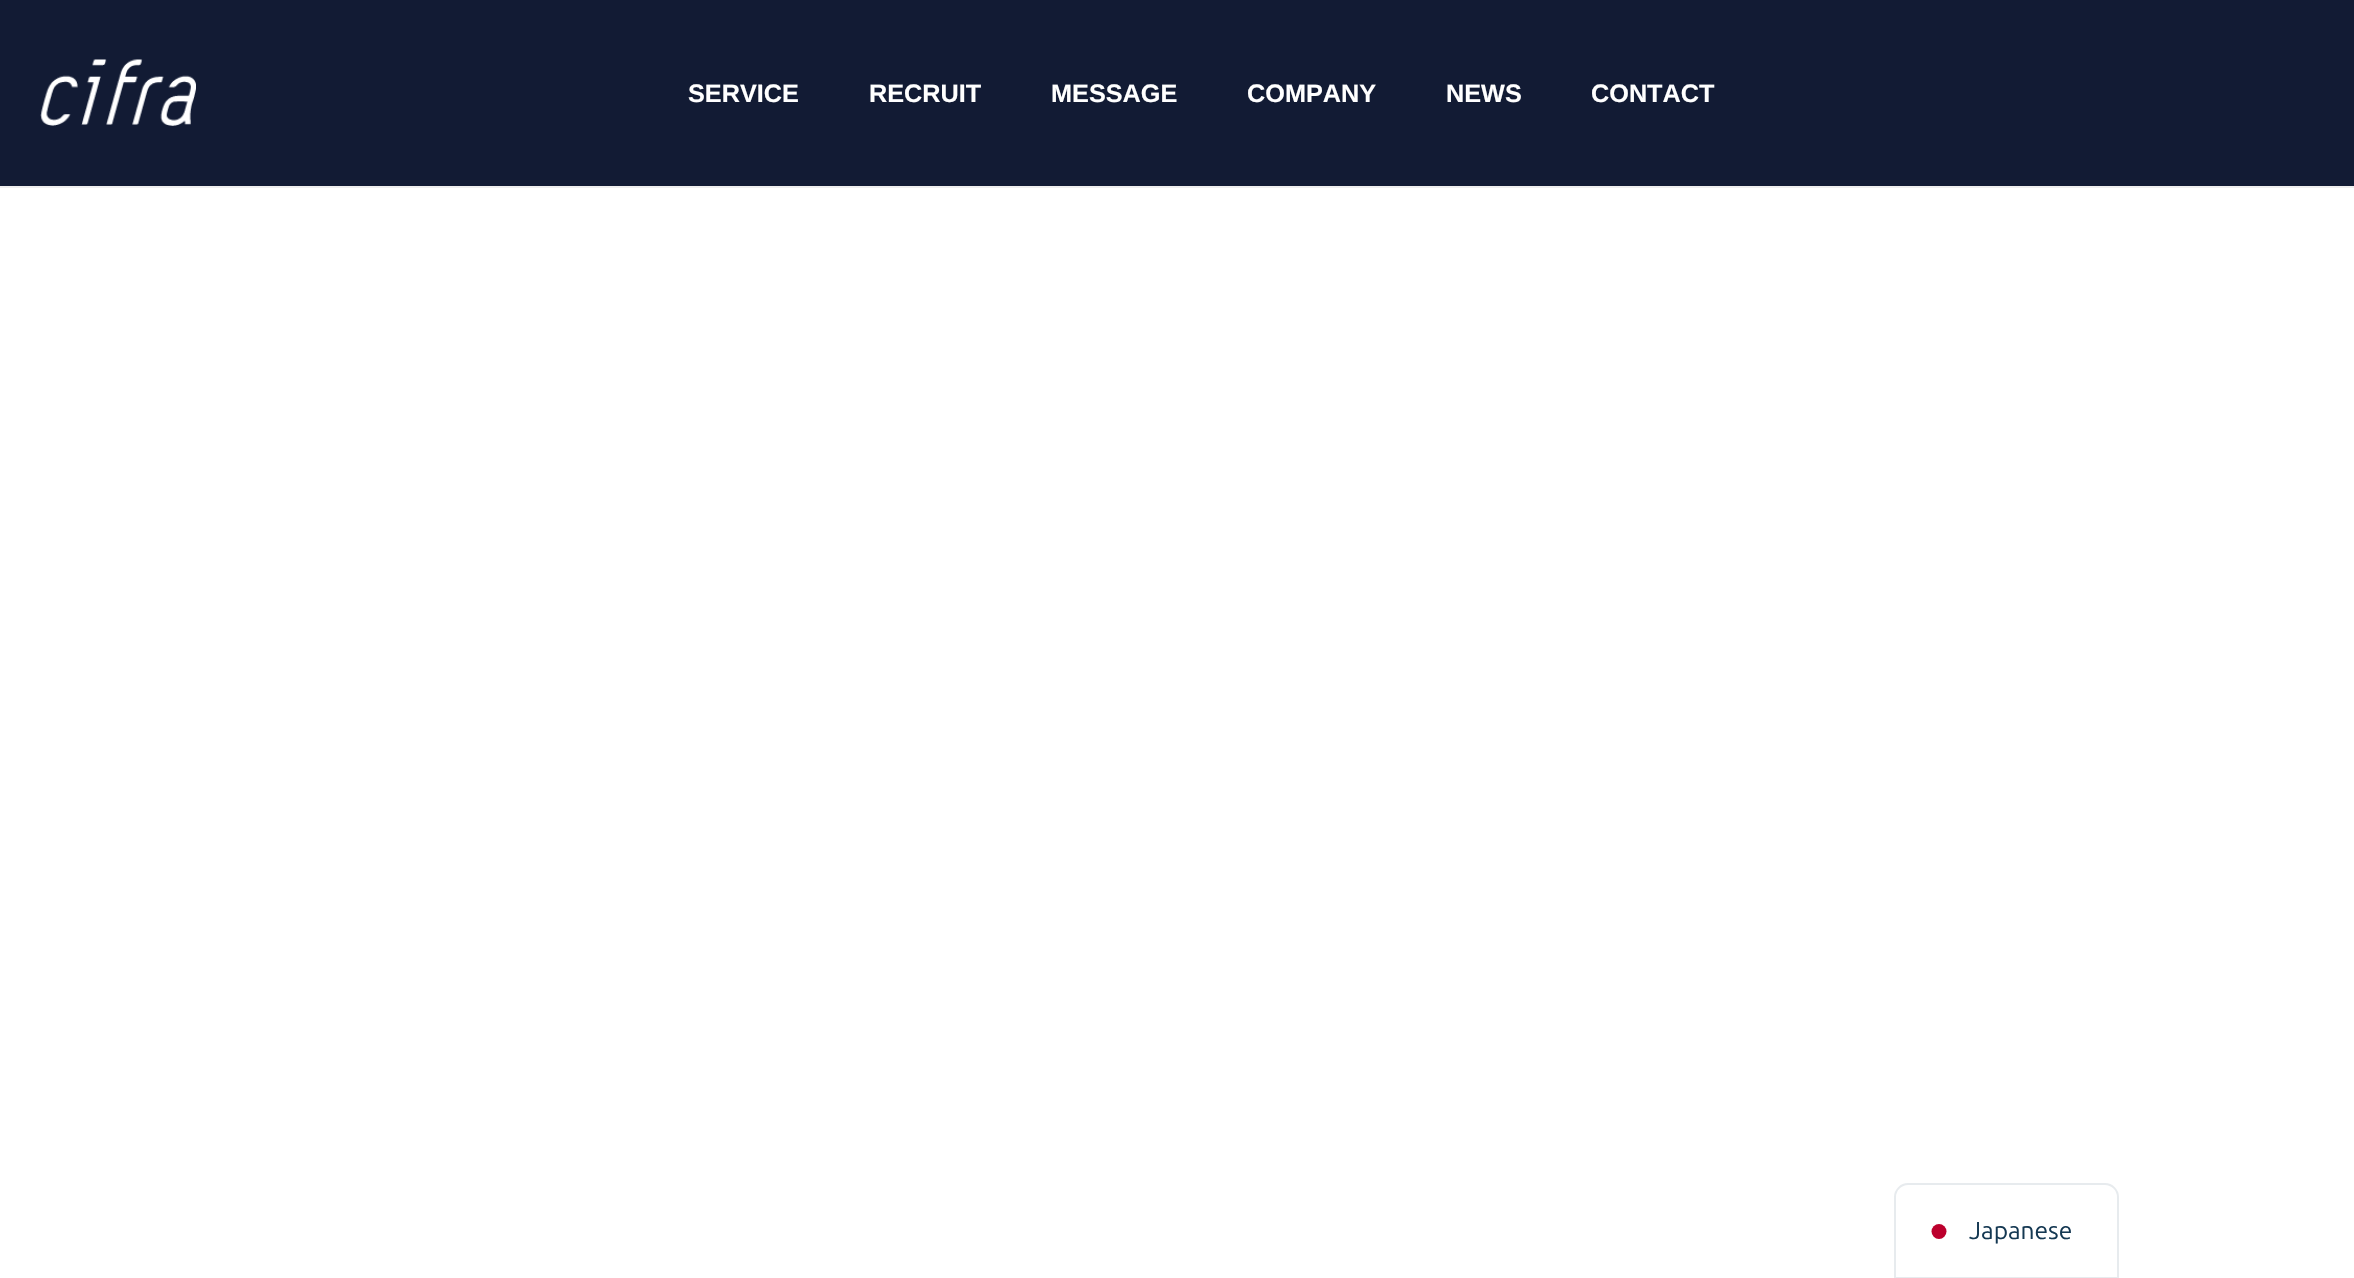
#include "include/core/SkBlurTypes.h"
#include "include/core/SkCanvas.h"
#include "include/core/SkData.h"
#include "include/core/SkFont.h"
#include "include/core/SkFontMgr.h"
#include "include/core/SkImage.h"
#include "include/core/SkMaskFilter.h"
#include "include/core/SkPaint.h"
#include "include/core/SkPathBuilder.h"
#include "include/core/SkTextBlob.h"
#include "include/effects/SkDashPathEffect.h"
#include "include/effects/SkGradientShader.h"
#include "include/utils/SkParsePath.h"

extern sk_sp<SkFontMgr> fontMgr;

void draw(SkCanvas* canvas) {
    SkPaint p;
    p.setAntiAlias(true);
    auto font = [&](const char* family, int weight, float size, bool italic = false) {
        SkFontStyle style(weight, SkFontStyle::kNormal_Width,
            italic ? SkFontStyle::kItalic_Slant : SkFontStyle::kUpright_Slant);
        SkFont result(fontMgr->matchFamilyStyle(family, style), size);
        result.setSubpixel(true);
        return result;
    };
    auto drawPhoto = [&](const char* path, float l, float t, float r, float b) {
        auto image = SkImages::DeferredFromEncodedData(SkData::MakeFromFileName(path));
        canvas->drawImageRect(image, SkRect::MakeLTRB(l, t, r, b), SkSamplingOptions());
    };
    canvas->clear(0xFFFFFFFF);
    p.setColor(0xFF121B34);
    canvas->drawRect(SkRect::MakeLTRB(0, 0, 2354, 186), p);
    p.setColor(0xFFEFEFEF);
    canvas->drawRect(SkRect::MakeLTRB(0, 186, 2354, 188), p);
    drawPhoto("media/1.png", 40, 59, 196, 126);
    auto font1 = font("Liberation Sans", 700, 25.25f);
    p.setColor(0xFFFFFFFF);
    {
        const struct { const char* s; float x, y; } items[] = {
            {"SERVICE", 688, 102},
            {"RECRUIT", 869, 102},
            {"MESSAGE", 1051, 102},
            {"COMPANY", 1247, 102},
            {"NEWS", 1446, 102},
            {"CONTACT", 1591, 102},
        };
        for (auto [s, x, y] : items) {
            canvas->drawString(s, x, y, font1, p);
        }
    }
    p.setStyle(SkPaint::kStroke_Style);
    p.setStrokeWidth(2);
    p.setColor(0xFFE7EBEE);
    canvas->drawPath(SkPathBuilder().moveTo(1908, 1184).lineTo(2105, 1184).cubicTo(2112, 1184, 2118, 1190, 2118, 1197).lineTo(2118, 1278).lineTo(1895, 1278).lineTo(1895, 1197).cubicTo(1895, 1190, 1901, 1184, 1908, 1184).close().detach(), p);
    p.setStyle(SkPaint::kFill_Style);
    p.setColor(0xFFBC002D);
    canvas->drawCircle(1939, 1231.5f, 7.5f, p);
    auto font2 = font("Ubuntu", 400, 24.5f);
    p.setColor(0xFF143852);
    canvas->drawString("Japanese", 1969, 1239, font2, p);
}
